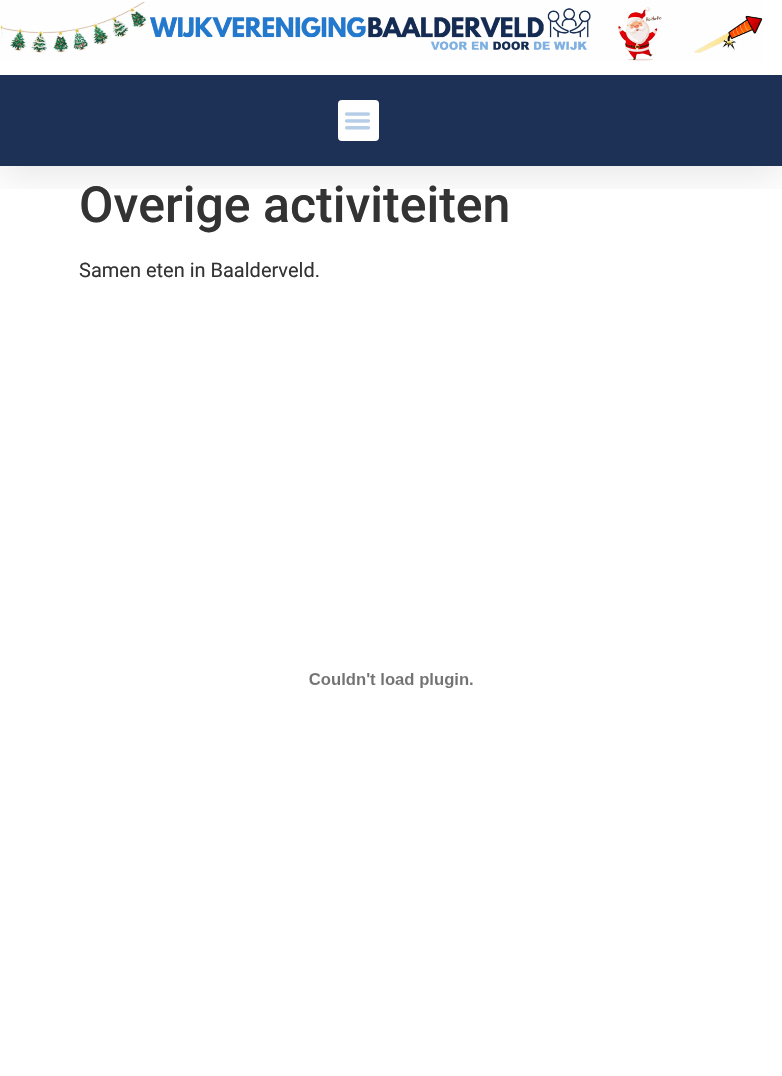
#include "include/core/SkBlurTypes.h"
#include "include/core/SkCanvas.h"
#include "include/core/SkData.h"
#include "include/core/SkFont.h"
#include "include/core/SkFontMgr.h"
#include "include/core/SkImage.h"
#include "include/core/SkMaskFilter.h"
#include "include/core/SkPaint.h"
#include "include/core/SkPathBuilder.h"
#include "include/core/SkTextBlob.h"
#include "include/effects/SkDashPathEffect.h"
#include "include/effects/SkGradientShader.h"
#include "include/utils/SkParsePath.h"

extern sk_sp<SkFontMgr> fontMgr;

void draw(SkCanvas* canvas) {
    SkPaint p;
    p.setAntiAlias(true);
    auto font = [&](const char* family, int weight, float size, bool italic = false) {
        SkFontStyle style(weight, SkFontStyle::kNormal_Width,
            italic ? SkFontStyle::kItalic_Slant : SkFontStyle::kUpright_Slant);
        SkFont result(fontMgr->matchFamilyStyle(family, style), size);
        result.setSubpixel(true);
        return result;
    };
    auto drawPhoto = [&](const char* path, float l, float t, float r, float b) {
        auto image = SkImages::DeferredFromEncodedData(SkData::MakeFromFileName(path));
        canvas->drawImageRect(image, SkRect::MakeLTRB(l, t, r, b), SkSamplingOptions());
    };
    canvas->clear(0xFFFFFFFF);
    canvas->save();
    canvas->clipRect(SkRect::MakeLTRB(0, 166, 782, 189));
    p.setColor(0x1A000000);
    p.setMaskFilter(SkMaskFilter::MakeBlur(kNormal_SkBlurStyle, 19));
    canvas->drawRect(SkRect::MakeLTRB(0, 6, 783, 173), p);
    p.setMaskFilter(nullptr);
    canvas->restore();
    drawPhoto("media/1.png", 0, 1, 763, 61);
    p.setColor(0xFF1D3156);
    canvas->drawRect(SkRect::MakeLTRB(0, 75, 782, 166), p);
    p.setColor(0xFFFFFFFF);
    canvas->drawRoundRect(SkRect::MakeLTRB(338, 100, 379, 141), 4, 4, p);
    drawPhoto("media/2.png", 345, 112, 370, 130);
    auto font1 = font("Roboto", 500, 50);
    p.setColor(0xFF333333);
    canvas->drawString("Overige activiteiten", 79, 222, font1, p);
    auto font2 = font("Roboto", 400, 20);
    canvas->drawString("Samen eten in Baalderveld.", 79, 277, font2, p);
    drawPhoto("media/3.png", 309, 673, 473, 688);
}
